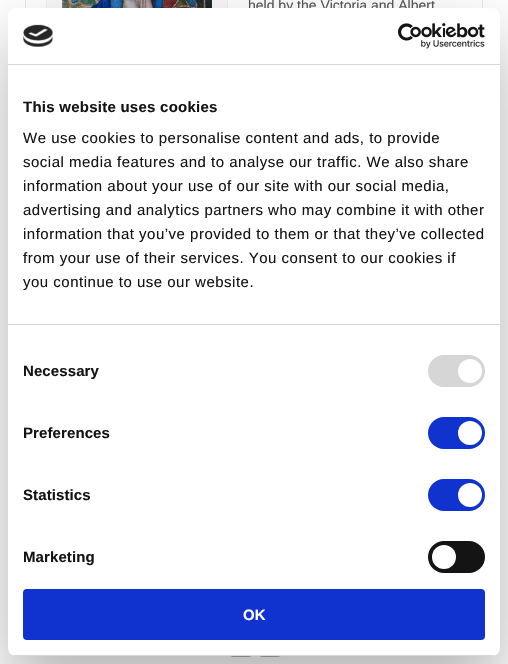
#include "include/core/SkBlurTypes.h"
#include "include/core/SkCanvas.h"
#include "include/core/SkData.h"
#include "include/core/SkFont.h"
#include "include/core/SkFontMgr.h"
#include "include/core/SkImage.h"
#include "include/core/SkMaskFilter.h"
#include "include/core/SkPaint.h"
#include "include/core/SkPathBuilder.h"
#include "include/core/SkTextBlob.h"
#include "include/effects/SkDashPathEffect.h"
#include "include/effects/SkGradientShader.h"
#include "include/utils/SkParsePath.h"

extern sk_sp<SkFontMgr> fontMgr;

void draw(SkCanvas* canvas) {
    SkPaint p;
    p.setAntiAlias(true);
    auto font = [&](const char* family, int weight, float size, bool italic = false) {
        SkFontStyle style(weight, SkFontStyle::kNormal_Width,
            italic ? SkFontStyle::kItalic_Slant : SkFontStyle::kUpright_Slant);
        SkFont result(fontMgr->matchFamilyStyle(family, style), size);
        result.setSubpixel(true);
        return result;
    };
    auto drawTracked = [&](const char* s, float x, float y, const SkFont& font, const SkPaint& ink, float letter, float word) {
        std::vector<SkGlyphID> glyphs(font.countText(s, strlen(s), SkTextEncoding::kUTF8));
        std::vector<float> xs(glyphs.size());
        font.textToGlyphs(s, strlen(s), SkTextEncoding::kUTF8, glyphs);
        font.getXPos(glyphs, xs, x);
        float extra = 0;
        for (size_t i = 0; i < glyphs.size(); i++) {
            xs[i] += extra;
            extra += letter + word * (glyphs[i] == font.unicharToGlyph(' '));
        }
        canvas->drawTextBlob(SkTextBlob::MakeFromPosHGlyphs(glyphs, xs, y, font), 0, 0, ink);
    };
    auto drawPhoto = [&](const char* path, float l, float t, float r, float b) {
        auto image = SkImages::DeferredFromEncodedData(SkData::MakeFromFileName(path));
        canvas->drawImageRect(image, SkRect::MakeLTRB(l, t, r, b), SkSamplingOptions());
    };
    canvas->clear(0xFFFFFFFF);
    p.setStyle(SkPaint::kStroke_Style);
    p.setStrokeWidth(1);
    p.setColor(0xFFE5E5E5);
    canvas->drawRect(SkRect::MakeLTRB(25.5f, -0.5f, 482.5f, 569.5f), p);
    p.setStyle(SkPaint::kFill_Style);
    p.setColor(0xFFF9F9F9);
    canvas->drawRect(SkRect::MakeLTRB(47, 0, 227, 8), p);
    p.setStyle(SkPaint::kStroke_Style);
    p.setColor(0xFFF0F0F0);
    canvas->drawRect(SkRect::MakeLTRB(46.5f, -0.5f, 227.5f, 137.5f), p);
    drawPhoto("media/1.png", 62, 0, 212, 8);
    auto font1 = font("Liberation Sans", 400, 14);
    p.setStyle(SkPaint::kFill_Style);
    p.setColor(0xFF555555);
    canvas->drawString("held by the Victoria and Albert", 248, 10, font1, p);
    drawPhoto("media/4.png", 230, 656, 252, 657);
    drawPhoto("media/4.png", 259, 656, 281, 657);
    p.setColor(0x4D000000);
    p.setMaskFilter(SkMaskFilter::MakeBlur(kNormal_SkBlurStyle, 34));
    canvas->drawRoundRect(SkRect::MakeLTRB(8, 40, 500, 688), 8, 8, p);
    p.setMaskFilter(nullptr);
    p.setColor(0xFFFFFFFF);
    canvas->drawRoundRect(SkRect::MakeLTRB(8, 8, 500, 656), 8, 8, p);
    p.setColor(0xFFD6D6D6);
    canvas->drawRect(SkRect::MakeLTRB(8, 64, 500, 65), p);
    drawPhoto("media/2.png", 23, 24, 53, 47);
    drawPhoto("media/3.png", 398, 23, 485, 49);
    canvas->drawRect(SkRect::MakeLTRB(8, 324, 500, 325), p);
    auto font2 = font("Liberation Sans", 700, 15);
    p.setColor(0xFF141414);
    drawTracked("This website uses cookies", 23, 112, font2, p, 0.25f, 0);
    auto font3 = font("Liberation Sans", 400, 15);
    {
        const struct { const char* s; float x, y; } items[] = {
            {"We use cookies to personalise content and ads, to provide", 23, 143},
            {"social media features and to analyse our traffic. We also share", 23, 167},
            {"information about your use of our site with our social media,", 23, 191},
            {"advertising and analytics partners who may combine it with other", 23, 215},
            {"information that you’ve provided to them or that they’ve collected", 23, 239},
            {"from your use of their services. You consent to our cookies if", 23, 263},
            {"you continue to use our website.", 23, 287},
        };
        for (auto [s, x, y] : items) {
            drawTracked(s, x, y, font3, p, 0.5f, 0);
        }
    }
    drawTracked("Necessary", 23, 376, font2, p, 0.1f, 0);
    p.setColor(0xFFD6D6D6);
    canvas->drawRoundRect(SkRect::MakeLTRB(428, 355, 485, 387), 16, 16, p);
    p.setColor(0xFFFFFFFF);
    canvas->drawCircle(470, 371, 12, p);
    p.setColor(0xFF141414);
    drawTracked("Preferences", 23, 438, font2, p, 0.1f, 0);
    p.setColor(0xFF1032CF);
    canvas->drawRoundRect(SkRect::MakeLTRB(428, 417, 485, 449), 16, 16, p);
    p.setColor(0xFFFFFFFF);
    canvas->drawCircle(470, 433, 12, p);
    p.setColor(0xFF141414);
    drawTracked("Statistics", 23, 500, font2, p, 0.1f, 0);
    p.setColor(0xFF1032CF);
    canvas->drawRoundRect(SkRect::MakeLTRB(428, 479, 485, 511), 16, 16, p);
    p.setColor(0xFFFFFFFF);
    canvas->drawCircle(470, 495, 12, p);
    p.setColor(0xFF141414);
    drawTracked("Marketing", 23, 562, font2, p, 0.1f, 0);
    canvas->drawRoundRect(SkRect::MakeLTRB(428, 541, 485, 573), 16, 16, p);
    p.setColor(0xFFFFFFFF);
    canvas->drawCircle(444, 557, 12, p);
    canvas->save();
    canvas->clipPath(SkPathBuilder().moveTo(16, 8).lineTo(492, 8).cubicTo(496.5f, 8, 500, 11.5f, 500, 16).lineTo(500, 648).cubicTo(500, 652.5f, 496.5f, 656, 492, 656).lineTo(16, 656).cubicTo(11.5f, 656, 8, 652.5f, 8, 648).lineTo(8, 16).cubicTo(8, 11.5f, 11.5f, 8, 16, 8).close().detach(), true);
    p.setColor(0xFFD6D6D6);
    canvas->drawRect(SkRect::MakeLTRB(8, 655, 500, 656), p);
    canvas->restore();
    p.setColor(0xFF1032CF);
    canvas->drawRoundRect(SkRect::MakeLTRB(24, 590, 484, 639), 3, 3, p);
    p.setStyle(SkPaint::kStroke_Style);
    p.setStrokeWidth(2);
    canvas->drawRoundRect(SkRect::MakeLTRB(24, 590, 484, 639), 3, 3, p);
    p.setStyle(SkPaint::kFill_Style);
    p.setColor(0xFFFFFFFF);
    canvas->drawString("OK", 243, 620, font2, p);
}
